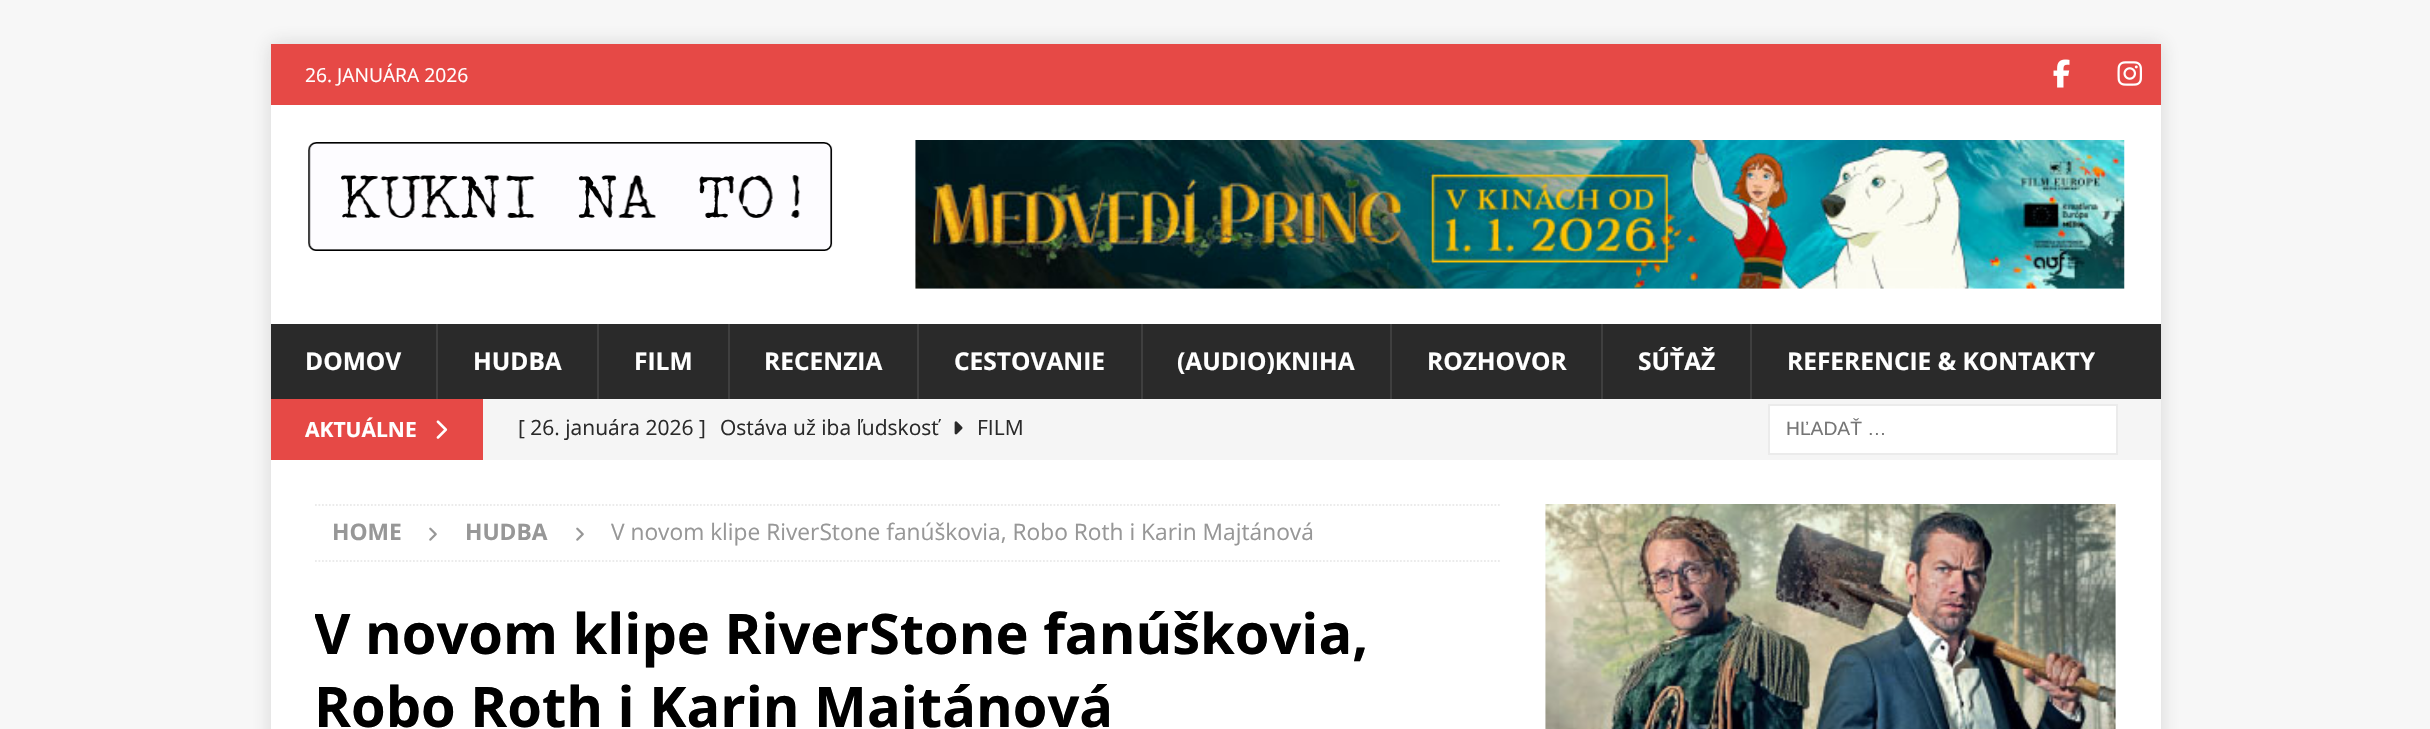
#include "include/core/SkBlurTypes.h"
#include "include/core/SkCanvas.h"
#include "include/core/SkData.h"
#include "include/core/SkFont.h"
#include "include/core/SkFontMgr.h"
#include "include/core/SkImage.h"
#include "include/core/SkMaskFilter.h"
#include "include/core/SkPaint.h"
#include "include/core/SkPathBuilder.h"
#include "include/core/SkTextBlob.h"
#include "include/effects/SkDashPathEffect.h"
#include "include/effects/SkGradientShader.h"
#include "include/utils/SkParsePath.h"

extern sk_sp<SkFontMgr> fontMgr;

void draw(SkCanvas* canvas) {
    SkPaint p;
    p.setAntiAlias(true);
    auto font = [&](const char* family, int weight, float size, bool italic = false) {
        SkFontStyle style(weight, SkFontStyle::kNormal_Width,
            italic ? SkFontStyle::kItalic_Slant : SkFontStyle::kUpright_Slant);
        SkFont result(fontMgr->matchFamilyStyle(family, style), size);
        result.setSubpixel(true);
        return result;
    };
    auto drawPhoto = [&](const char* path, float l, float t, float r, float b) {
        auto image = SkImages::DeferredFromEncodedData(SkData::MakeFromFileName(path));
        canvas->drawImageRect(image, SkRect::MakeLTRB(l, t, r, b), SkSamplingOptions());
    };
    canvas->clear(0xFFF7F7F7);
    p.setColor(0x2B323232);
    p.setMaskFilter(SkMaskFilter::MakeBlur(kNormal_SkBlurStyle, 9));
    canvas->drawRect(SkRect::MakeLTRB(271, 44, 2161, 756), p);
    p.setMaskFilter(nullptr);
    p.setColor(0xFFE64946);
    canvas->drawRect(SkRect::MakeLTRB(271, 44, 2161, 105), p);
    auto font1 = font("Open Sans", 400, 19.25f);
    p.setColor(0xFFFFFFFF);
    canvas->drawString("26. JANUÁRA 2026", 305, 82, font1, p);
    drawPhoto("media/1.png", 2053, 59, 2070, 88);
    drawPhoto("media/2.png", 2117, 61, 2142, 86);
    canvas->drawRect(SkRect::MakeLTRB(271, 105, 2161, 324), p);
    drawPhoto("media/3.png", 308, 142, 833, 251);
    drawPhoto("media/4.png", 915, 140, 2125, 289);
    p.setColor(0xFF2A2A2A);
    canvas->drawRect(SkRect::MakeLTRB(271, 324, 2161, 399), p);
    auto font2 = font("Open Sans", 700, 24.5f);
    p.setColor(0xFFFFFFFF);
    canvas->drawString("DOMOV", 305, 370, font2, p);
    p.setColor(0xFF3F3F3F);
    canvas->drawRect(SkRect::MakeLTRB(436, 324, 438, 399), p);
    p.setColor(0xFFFFFFFF);
    canvas->drawString("HUDBA", 473, 370, font2, p);
    p.setColor(0xFF3F3F3F);
    canvas->drawRect(SkRect::MakeLTRB(597, 324, 599, 399), p);
    p.setColor(0xFFFFFFFF);
    canvas->drawString("FILM", 634, 370, font2, p);
    p.setColor(0xFF3F3F3F);
    canvas->drawRect(SkRect::MakeLTRB(728, 324, 730, 399), p);
    p.setColor(0xFFFFFFFF);
    canvas->drawString("RECENZIA", 764, 370, font2, p);
    p.setColor(0xFF3F3F3F);
    canvas->drawRect(SkRect::MakeLTRB(917, 324, 919, 399), p);
    p.setColor(0xFFFFFFFF);
    canvas->drawString("CESTOVANIE", 954, 370, font2, p);
    p.setColor(0xFF3F3F3F);
    canvas->drawRect(SkRect::MakeLTRB(1141, 324, 1143, 399), p);
    p.setColor(0xFFFFFFFF);
    canvas->drawString("(AUDIO)KNIHA", 1177, 370, font2, p);
    p.setColor(0xFF3F3F3F);
    canvas->drawRect(SkRect::MakeLTRB(1390, 324, 1392, 399), p);
    p.setColor(0xFFFFFFFF);
    canvas->drawString("ROZHOVOR", 1427, 370, font2, p);
    p.setColor(0xFF3F3F3F);
    canvas->drawRect(SkRect::MakeLTRB(1601, 324, 1603, 399), p);
    p.setColor(0xFFFFFFFF);
    canvas->drawString("SÚŤAŽ", 1638, 370, font2, p);
    p.setColor(0xFF3F3F3F);
    canvas->drawRect(SkRect::MakeLTRB(1750, 324, 1752, 399), p);
    p.setColor(0xFFFFFFFF);
    canvas->drawString("REFERENCIE & KONTAKTY", 1787, 370, font2, p);
    p.setColor(0xFFF5F5F5);
    canvas->drawRect(SkRect::MakeLTRB(483, 399, 2161, 460), p);
    p.setColor(0xFFE64946);
    canvas->drawRect(SkRect::MakeLTRB(271, 399, 483, 460), p);
    auto font3 = font("Open Sans", 700, 21);
    p.setColor(0xFFFFFFFF);
    canvas->drawString("AKTUÁLNE", 305, 437, font3, p);
    drawPhoto("media/5.png", 436, 420, 448, 439);
    auto font4 = font("Open Sans", 400, 21);
    p.setColor(0xFF2A2A2A);
    canvas->drawString("[ 26. januára 2026 ]", 518, 435, font4, p);
    canvas->drawString("Ostáva už iba ľudskosť", 720, 435, font4, p);
    drawPhoto("media/6.png", 954, 421, 963, 435);
    canvas->drawString("FILM", 977, 435, font4, p);
    p.setColor(0xFFFFFFFF);
    canvas->drawRect(SkRect::MakeLTRB(1769, 405, 2117, 454), p);
    p.setStyle(SkPaint::kStroke_Style);
    p.setStrokeWidth(2);
    p.setColor(0xFFEBEBEB);
    canvas->drawRect(SkRect::MakeLTRB(1769, 405, 2117, 454), p);
    auto font5 = font("Liberation Sans", 400, 19.25f);
    p.setStyle(SkPaint::kFill_Style);
    p.setColor(0xFF757575);
    canvas->drawString("HĽADAŤ …", 1786, 435, font5, p);
    p.setColor(0xFFFFFFFF);
    canvas->drawRect(SkRect::MakeLTRB(271, 460, 2161, 729), p);
    p.setStyle(SkPaint::kStroke_Style);
    p.setStrokeWidth(1.8f);
    p.setColor(0xFFEBEBEB);
    p.setPathEffect(SkDashPathEffect::Make({{1.75f, 1.75f}}, 0));
    canvas->drawPath(SkPathBuilder().moveTo(315, 505).lineTo(1501.5f, 505).detach(), p);
    p.setPathEffect(nullptr);
    p.setPathEffect(SkDashPathEffect::Make({{1.75f, 1.75f}}, 0));
    canvas->drawPath(SkPathBuilder().moveTo(315, 561).lineTo(1501.5f, 561).detach(), p);
    p.setPathEffect(nullptr);
    auto font6 = font("Open Sans", 700, 22.75f);
    p.setStyle(SkPaint::kFill_Style);
    p.setColor(0xFF979797);
    canvas->drawString("HOME", 332, 540, font6, p);
    drawPhoto("media/7.png", 429, 527, 437, 541);
    canvas->drawString("HUDBA", 465, 540, font6, p);
    drawPhoto("media/7.png", 576, 527, 584, 541);
    auto font7 = font("Open Sans", 400, 22.75f);
    canvas->drawString("V novom klipe RiverStone fanúškovia, Robo Roth i Karin Majtánová", 611, 540, font7, p);
    canvas->save();
    canvas->clipRect(SkRect::MakeLTRB(315, 504, 1502, 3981));
    auto font8 = font("Open Sans", 700, 56);
    p.setColor(0xFF000000);
    canvas->drawString("V novom klipe RiverStone fanúškovia,", 314, 654, font8, p);
    canvas->restore();
    canvas->drawString("Robo Roth i Karin Majtánová", 314, 727, font8, p);
    drawPhoto("media/8.png", 1545, 504, 2116, 729);
}
